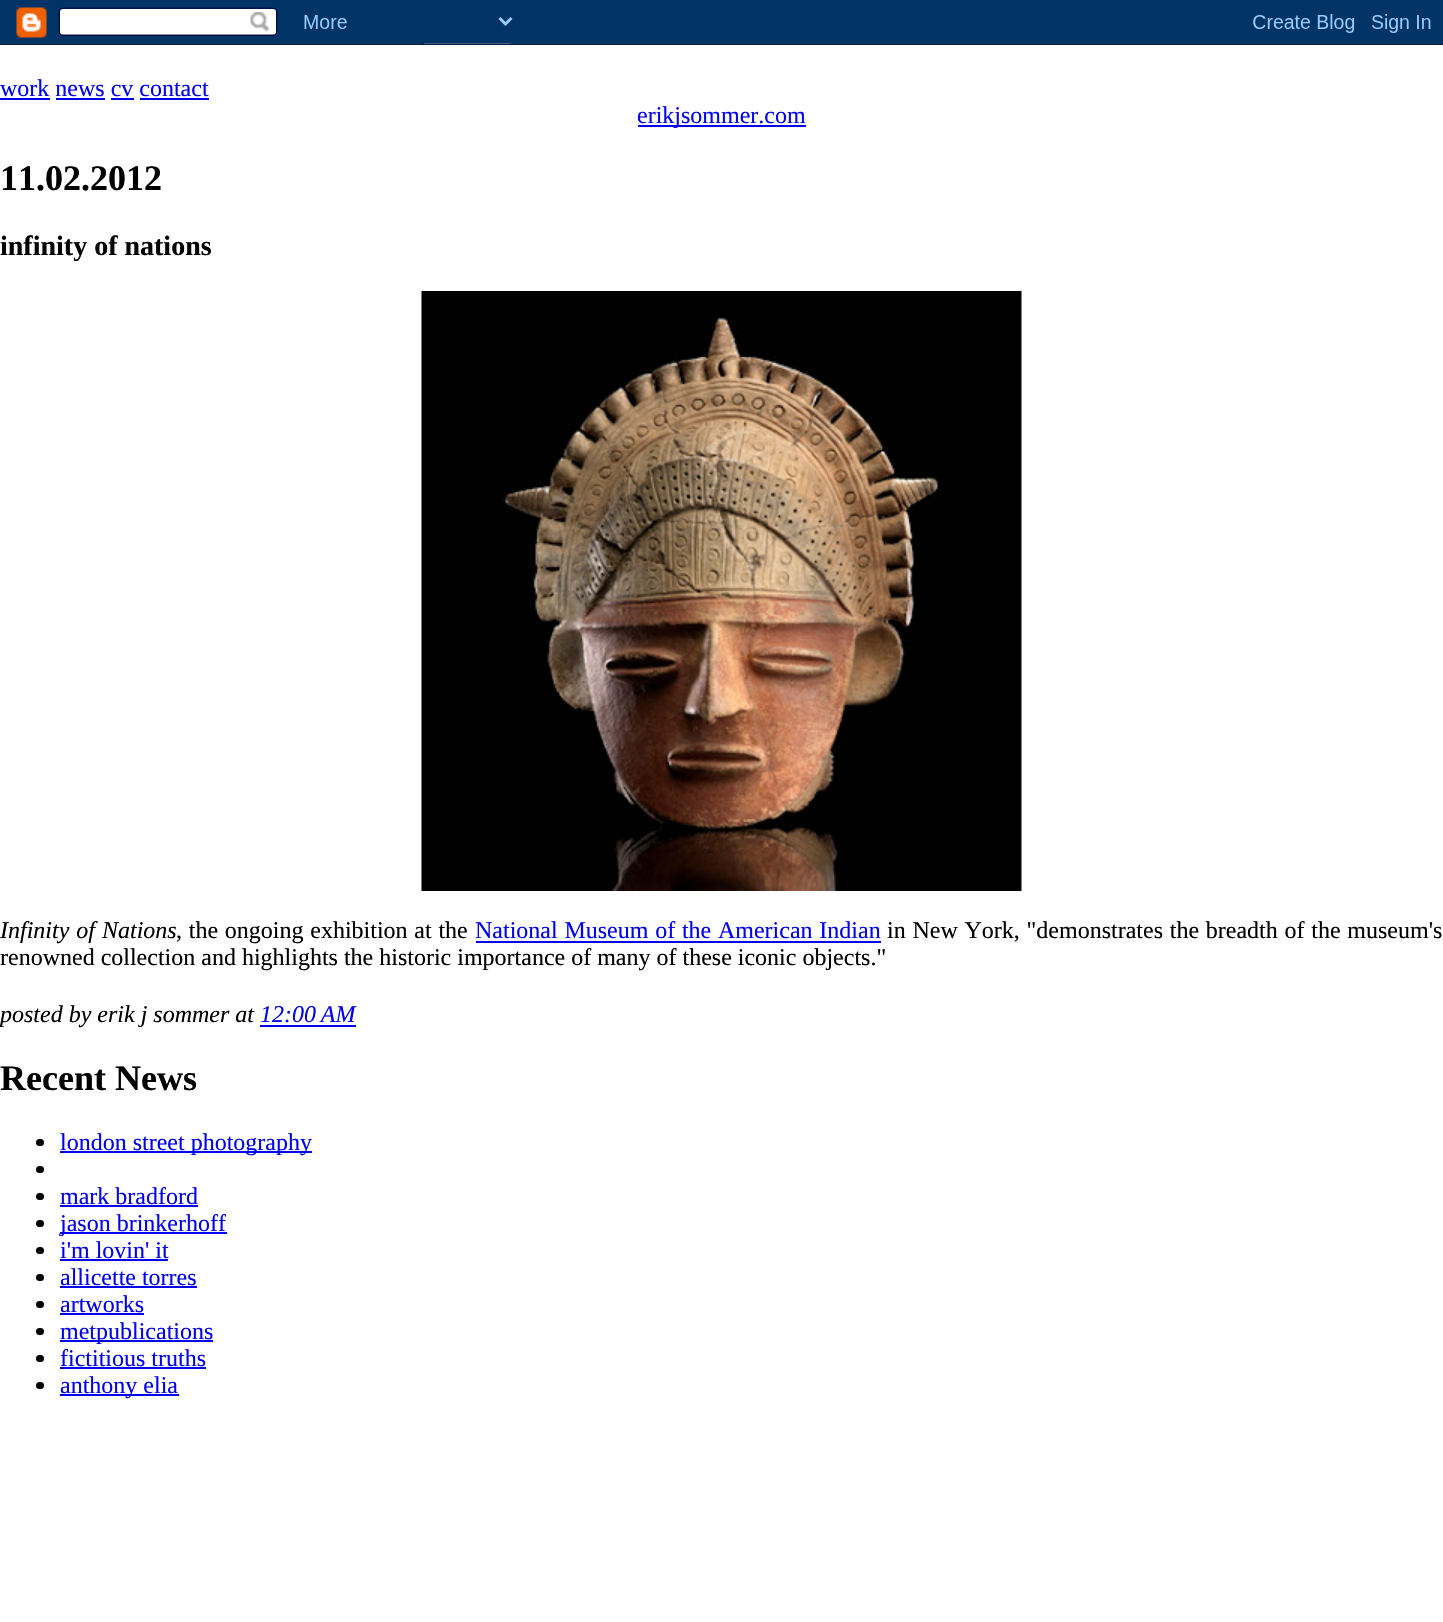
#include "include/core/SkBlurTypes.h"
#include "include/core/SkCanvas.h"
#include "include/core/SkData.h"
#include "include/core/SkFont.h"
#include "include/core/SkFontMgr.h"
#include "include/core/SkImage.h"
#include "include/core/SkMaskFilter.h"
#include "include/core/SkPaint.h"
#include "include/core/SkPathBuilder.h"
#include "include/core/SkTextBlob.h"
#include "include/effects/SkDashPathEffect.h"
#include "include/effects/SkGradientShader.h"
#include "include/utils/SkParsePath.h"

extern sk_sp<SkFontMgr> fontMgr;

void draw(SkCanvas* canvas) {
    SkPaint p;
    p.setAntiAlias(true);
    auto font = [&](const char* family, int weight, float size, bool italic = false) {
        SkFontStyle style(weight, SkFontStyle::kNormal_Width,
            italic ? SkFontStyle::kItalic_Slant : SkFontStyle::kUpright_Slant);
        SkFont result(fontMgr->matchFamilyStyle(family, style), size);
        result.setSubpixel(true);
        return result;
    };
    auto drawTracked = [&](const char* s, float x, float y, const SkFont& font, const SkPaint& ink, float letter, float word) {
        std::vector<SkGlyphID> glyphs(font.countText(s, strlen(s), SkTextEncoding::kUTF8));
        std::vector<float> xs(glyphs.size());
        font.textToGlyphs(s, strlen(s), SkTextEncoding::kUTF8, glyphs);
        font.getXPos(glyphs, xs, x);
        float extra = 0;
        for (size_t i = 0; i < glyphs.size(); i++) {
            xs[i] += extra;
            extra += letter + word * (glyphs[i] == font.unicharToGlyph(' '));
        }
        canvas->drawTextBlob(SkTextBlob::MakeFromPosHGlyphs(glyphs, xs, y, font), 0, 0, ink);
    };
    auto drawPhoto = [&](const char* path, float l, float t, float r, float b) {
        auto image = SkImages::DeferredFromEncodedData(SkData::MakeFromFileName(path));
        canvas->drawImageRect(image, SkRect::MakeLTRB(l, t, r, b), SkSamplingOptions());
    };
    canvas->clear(0xFFFFFFFF);
    drawPhoto("media/1.png", 0, 0, 1443, 45);
    auto font1 = font("Liberation Serif", 400, 24);
    p.setColor(0xFF0000EE);
    canvas->drawString("work news cv contact", 0, 96, font1, p);
    {
        const struct { float l, t, r, b; SkColor color; } items[] = {
            {0, 98, 50, 100, 0xFF0000EE},
            {56, 98, 105, 100, 0xFF0000EE},
            {111, 98, 134, 100, 0xFF0000EE},
            {140, 98, 209, 100, 0xFF0000EE},
            {638, 125, 806, 127, 0xFF0000EE},
        };
        for (auto [l, t, r, b, color] : items) {
            p.setColor(color);
            canvas->drawRect(SkRect::MakeLTRB(l, t, r, b), p);
        }
    }
    canvas->drawString("erikjsommer.com", 637, 123, font1, p);
    auto font2 = font("Liberation Serif", 700, 36);
    p.setColor(0xFF000000);
    canvas->drawString("11.02.2012", 0, 190, font2, p);
    auto font3 = font("Liberation Serif", 700, 28);
    canvas->drawString("infinity of nations", 0, 255, font3, p);
    drawPhoto("media/2.png", 421, 291, 1022, 891);
    auto font4 = font("Liberation Serif", 400, 24, true);
    drawTracked("Infinity of Nations", 0, 938, font4, p, 0, 1);
    drawTracked(", the ongoing exhibition at the", 176, 938, font1, p, 0, 0.75f);
    p.setColor(0xFF0000EE);
    drawTracked("National Museum of the American Indian", 475, 938, font1, p, 0, 0.75f);
    canvas->drawRect(SkRect::MakeLTRB(476, 941, 881, 943), p);
    p.setColor(0xFF000000);
    drawTracked("in New York, \"demonstrates the breadth of the museum's", 887, 938, font1, p, 0, 0.75f);
    canvas->drawString("renowned collection and highlights the historic importance of many of these iconic objects.\"", 0, 965, font1, p);
    canvas->drawString("posted by erik j sommer at", 0, 1022, font4, p);
    p.setColor(0xFF0000EE);
    canvas->drawString("12:00 AM", 260, 1022, font4, p);
    canvas->drawRect(SkRect::MakeLTRB(260, 1025, 356, 1027), p);
    p.setColor(0xFF000000);
    canvas->drawString("Recent News", 0, 1090, font2, p);
    canvas->drawRoundRect(SkRect::MakeLTRB(36, 1139, 44, 1146), 3.5f, 3.5f, p);
    p.setColor(0xFF0000EE);
    canvas->drawRect(SkRect::MakeLTRB(60, 1151, 312, 1153), p);
    canvas->drawString("london street photography", 60, 1150, font1, p);
    p.setColor(0xFF000000);
    canvas->drawRoundRect(SkRect::MakeLTRB(36, 1166, 44, 1173), 3.5f, 3.5f, p);
    canvas->drawRoundRect(SkRect::MakeLTRB(36, 1193, 44, 1200), 3.5f, 3.5f, p);
    p.setColor(0xFF0000EE);
    canvas->drawString("mark bradford", 60, 1204, font1, p);
    canvas->drawRect(SkRect::MakeLTRB(60, 1205, 198, 1207), p);
    p.setColor(0xFF000000);
    canvas->drawRoundRect(SkRect::MakeLTRB(36, 1220, 44, 1227), 3.5f, 3.5f, p);
    p.setColor(0xFF0000EE);
    canvas->drawRect(SkRect::MakeLTRB(60, 1232, 227, 1234), p);
    canvas->drawString("jason brinkerhoff", 60, 1231, font1, p);
    p.setColor(0xFF000000);
    canvas->drawRoundRect(SkRect::MakeLTRB(36, 1247, 44, 1254), 3.5f, 3.5f, p);
    p.setColor(0xFF0000EE);
    canvas->drawString("i'm lovin' it", 60, 1258, font1, p);
    canvas->drawRect(SkRect::MakeLTRB(60, 1259, 168, 1261), p);
    p.setColor(0xFF000000);
    canvas->drawRoundRect(SkRect::MakeLTRB(36, 1274, 44, 1281), 3.5f, 3.5f, p);
    p.setColor(0xFF0000EE);
    canvas->drawString("allicette torres", 60, 1285, font1, p);
    canvas->drawRect(SkRect::MakeLTRB(60, 1286, 197, 1288), p);
    p.setColor(0xFF000000);
    canvas->drawRoundRect(SkRect::MakeLTRB(36, 1301, 44, 1308), 3.5f, 3.5f, p);
    p.setColor(0xFF0000EE);
    canvas->drawString("artworks", 60, 1312, font1, p);
    canvas->drawRect(SkRect::MakeLTRB(60, 1313, 144, 1315), p);
    p.setColor(0xFF000000);
    canvas->drawRoundRect(SkRect::MakeLTRB(36, 1328, 44, 1335), 3.5f, 3.5f, p);
    p.setColor(0xFF0000EE);
    canvas->drawRect(SkRect::MakeLTRB(60, 1340, 213, 1342), p);
    canvas->drawString("metpublications", 60, 1339, font1, p);
    p.setColor(0xFF000000);
    canvas->drawRoundRect(SkRect::MakeLTRB(36, 1355, 44, 1362), 3.5f, 3.5f, p);
    p.setColor(0xFF0000EE);
    canvas->drawString("fictitious truths", 60, 1366, font1, p);
    canvas->drawRect(SkRect::MakeLTRB(60, 1367, 206, 1369), p);
    p.setColor(0xFF000000);
    canvas->drawRoundRect(SkRect::MakeLTRB(36, 1382, 44, 1389), 3.5f, 3.5f, p);
    p.setColor(0xFF0000EE);
    canvas->drawRect(SkRect::MakeLTRB(60, 1394, 179, 1396), p);
    canvas->drawString("anthony elia", 60, 1393, font1, p);
}
